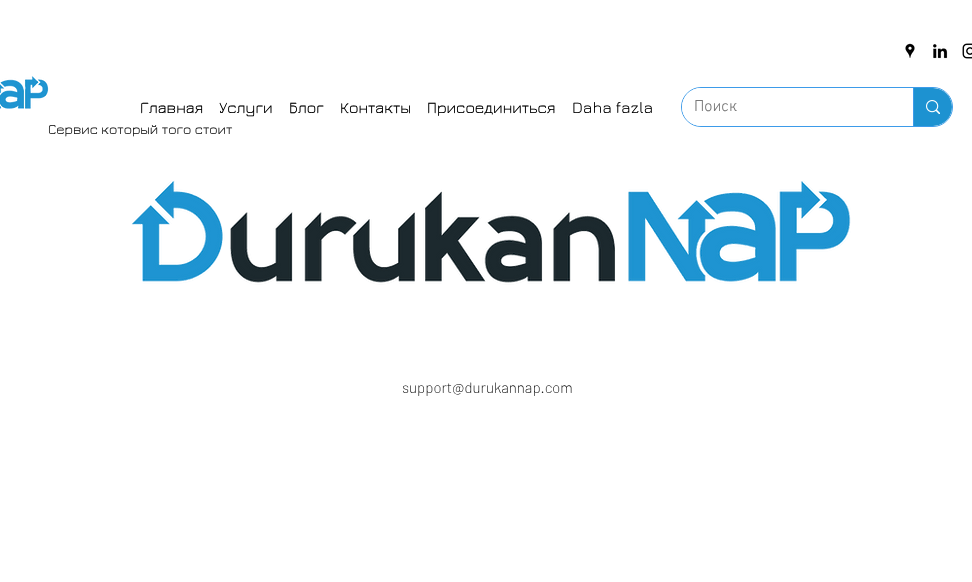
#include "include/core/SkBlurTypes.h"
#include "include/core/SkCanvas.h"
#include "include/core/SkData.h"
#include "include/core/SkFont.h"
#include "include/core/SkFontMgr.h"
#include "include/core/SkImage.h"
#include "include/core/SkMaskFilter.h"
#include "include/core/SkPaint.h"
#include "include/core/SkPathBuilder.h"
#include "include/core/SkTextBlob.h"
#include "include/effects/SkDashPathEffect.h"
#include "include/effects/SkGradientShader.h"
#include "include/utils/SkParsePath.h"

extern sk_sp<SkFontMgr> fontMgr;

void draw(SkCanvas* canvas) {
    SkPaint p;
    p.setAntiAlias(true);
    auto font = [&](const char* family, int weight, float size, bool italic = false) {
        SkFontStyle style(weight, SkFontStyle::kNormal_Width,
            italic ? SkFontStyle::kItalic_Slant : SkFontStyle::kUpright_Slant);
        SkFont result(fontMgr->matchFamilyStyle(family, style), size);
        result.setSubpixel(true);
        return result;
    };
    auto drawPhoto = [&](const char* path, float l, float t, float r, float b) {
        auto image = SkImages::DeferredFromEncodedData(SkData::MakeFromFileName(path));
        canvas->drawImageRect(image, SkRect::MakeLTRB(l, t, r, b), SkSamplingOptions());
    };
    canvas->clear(0xFFFFFFFF);
    drawPhoto("media/1.png", 905, 43, 915, 58);
    drawPhoto("media/2.png", 933, 44, 948, 59);
    drawPhoto("media/3.png", 962, 43, 972, 59);
    drawPhoto("media/4.png", 0, 76, 49, 109);
    auto font1 = font("Jura", 400, 16);
    p.setColor(0xFF000000);
    {
        const struct { const char* s; float x, y; } items[] = {
            {"Главная", 140, 113},
            {"Услуги", 219, 113},
            {"Блог", 289, 113},
            {"Контакты", 340, 113},
            {"Присоединиться", 427, 113},
            {"Daha fazla", 572, 113},
        };
        for (auto [s, x, y] : items) {
            canvas->drawString(s, x, y, font1, p);
        }
    }
    p.setStyle(SkPaint::kStroke_Style);
    p.setStrokeWidth(1);
    p.setColor(0xFF3D9BE9);
    canvas->drawRoundRect(SkRect::MakeLTRB(681.5f, 87.5f, 952.5f, 126.5f), 19.5f, 19.5f, p);
    p.setStyle(SkPaint::kFill_Style);
    p.setColor(0xFFFFFFFF);
    canvas->drawRoundRect(SkRect::MakeLTRB(682, 88, 952, 126), 19, 19, p);
    auto font2 = font("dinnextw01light", 300, 16);
    p.setColor(0xFF787878);
    canvas->drawString("Поиск", 694, 111, font2, p);
    p.setColor(0xFF1D92D1);
    canvas->drawPath(SkPathBuilder().moveTo(913, 88).lineTo(933, 88).cubicTo(943.5f, 88, 952, 96.5f, 952, 107).cubicTo(952, 117.5f, 943.5f, 126, 933, 126).lineTo(913, 126).close().detach(), p);
    p.setColor(0xFF3D9BE9);
    canvas->drawRect(SkRect::MakeLTRB(913, 88, 914, 126), p);
    drawPhoto("media/5.png", 926, 100, 940, 114);
    auto font3 = font("Jura", 400, 14);
    p.setColor(0xFF1B1B1B);
    canvas->drawString("Сервис который того стоит", 48, 134, font3, p);
    drawPhoto("media/6.png", 131, 180, 851, 285);
    auto font4 = font("Barlow", 200, 15);
    canvas->drawString("support@durukannap.com", 402, 393, font4, p);
}
